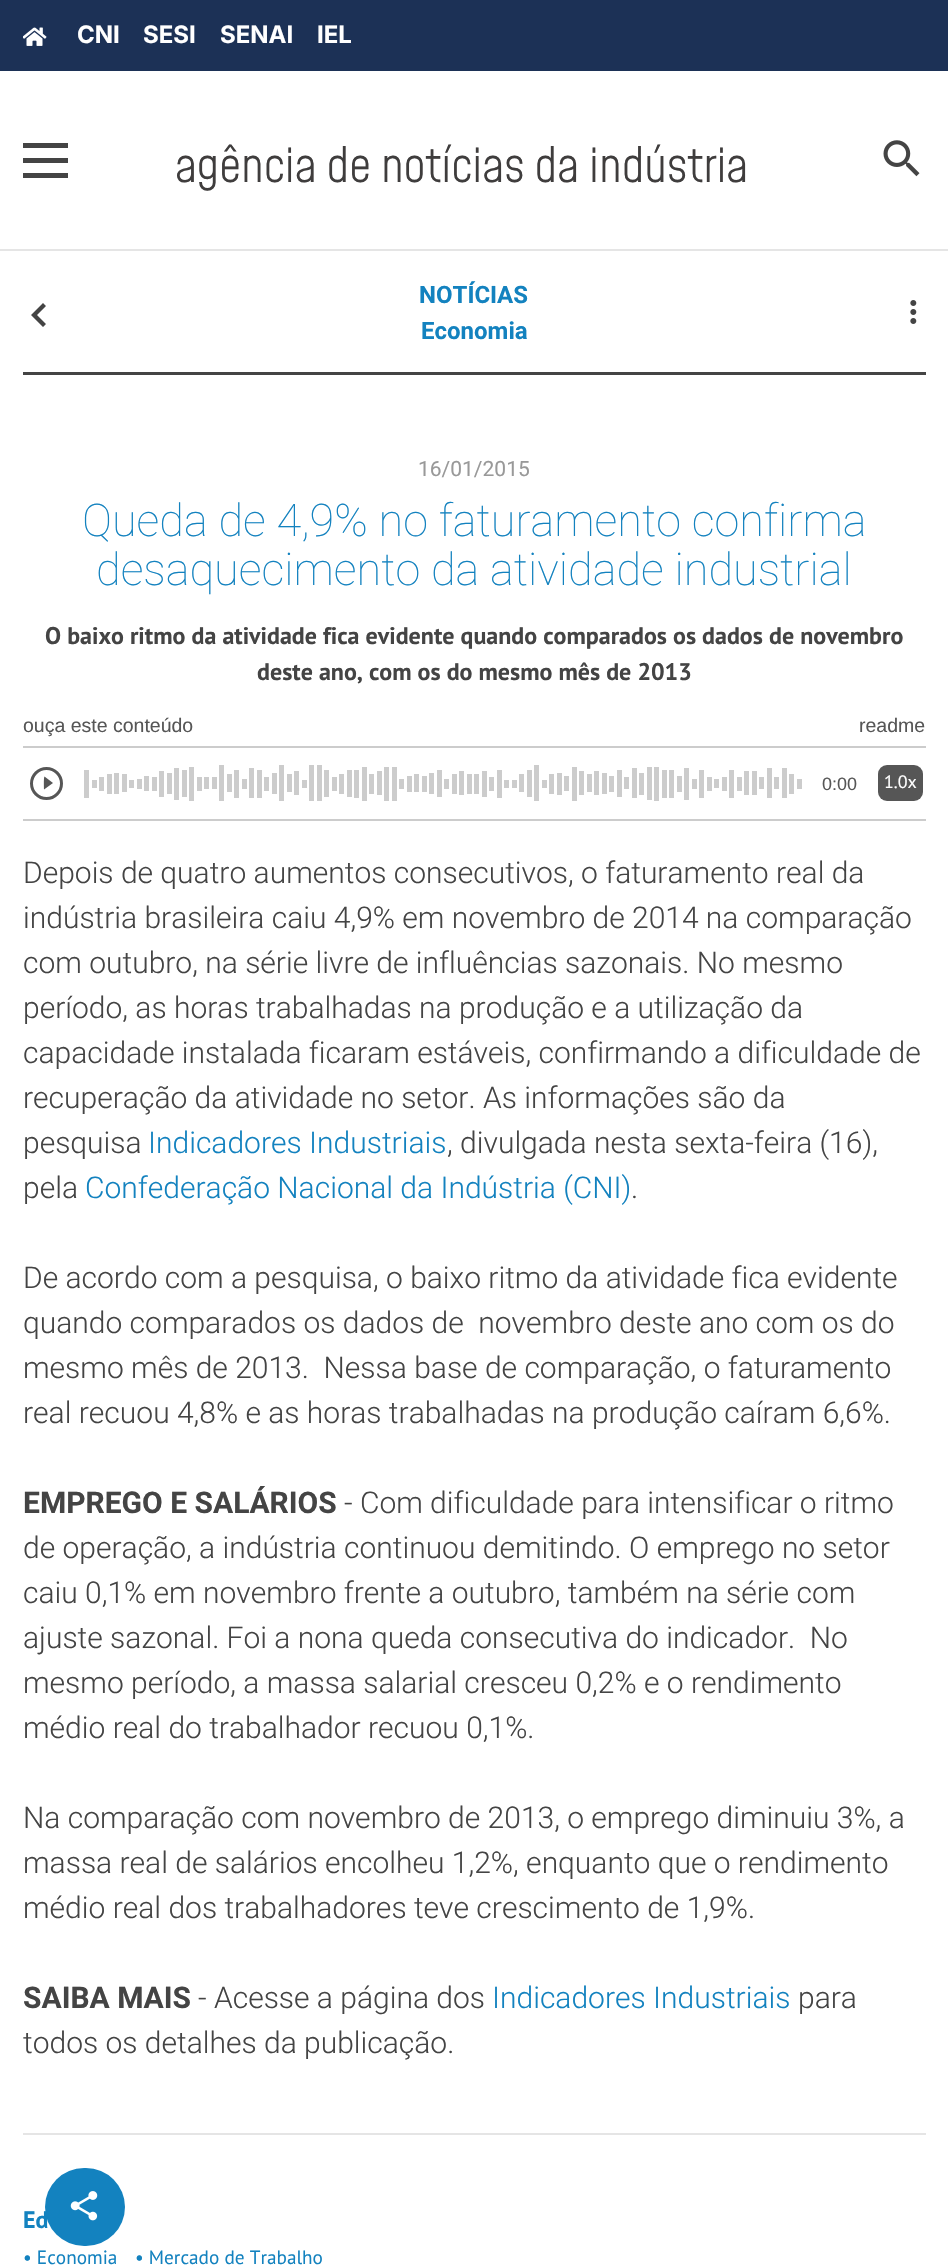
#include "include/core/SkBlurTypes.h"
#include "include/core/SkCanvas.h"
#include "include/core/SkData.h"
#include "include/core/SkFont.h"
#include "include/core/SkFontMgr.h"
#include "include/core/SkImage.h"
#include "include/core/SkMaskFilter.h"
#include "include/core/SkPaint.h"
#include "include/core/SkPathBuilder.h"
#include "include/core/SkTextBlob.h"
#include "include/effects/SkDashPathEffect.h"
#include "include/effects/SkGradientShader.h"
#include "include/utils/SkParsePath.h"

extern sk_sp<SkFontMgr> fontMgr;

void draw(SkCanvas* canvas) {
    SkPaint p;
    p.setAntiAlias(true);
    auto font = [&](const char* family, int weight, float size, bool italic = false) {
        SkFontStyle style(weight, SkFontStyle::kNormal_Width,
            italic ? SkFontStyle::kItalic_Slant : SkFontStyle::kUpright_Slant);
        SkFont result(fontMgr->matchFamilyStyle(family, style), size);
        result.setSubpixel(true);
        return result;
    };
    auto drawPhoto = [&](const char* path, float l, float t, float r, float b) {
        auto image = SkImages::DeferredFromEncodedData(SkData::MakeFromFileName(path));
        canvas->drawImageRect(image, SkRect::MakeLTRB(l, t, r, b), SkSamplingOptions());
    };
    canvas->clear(0xFFFFFFFF);
    p.setColor(0xFF1C3156);
    canvas->drawRect(SkRect::MakeLTRB(0, 0, 948, 71), p);
    drawPhoto("media/1.png", 23, 27, 47, 46);
    auto font1 = font("Inter", 700, 24);
    p.setColor(0xFFFFFFFF);
    {
        const struct { const char* s; float x, y; } items[] = {
            {"CNI", 77, 43},
            {"SESI", 143, 43},
            {"SENAI", 220, 43},
            {"IEL", 317, 43},
        };
        for (auto [s, x, y] : items) {
            canvas->drawString(s, x, y, font1, p);
        }
    }
    {
        const struct { float l, t, r, b; SkColor color; } items[] = {
            {0, 249, 948, 251, 0xFFE5E5E5},
            {23, 143, 68, 148, 0xFF444444},
            {23, 158, 68, 163, 0xFF444444},
            {23, 173, 68, 178, 0xFF444444},
        };
        for (auto [l, t, r, b, color] : items) {
            p.setColor(color);
            canvas->drawRect(SkRect::MakeLTRB(l, t, r, b), p);
        }
    }
    auto font2 = font("Mohave", 300, 48);
    p.setColor(0xFF3F3D3D);
    canvas->drawString("agência de notícias da indústria", 175, 182, font2, p);
    drawPhoto("media/2.png", 883, 140, 920, 177);
    p.setColor(0xFF444444);
    canvas->drawRect(SkRect::MakeLTRB(23, 372, 926, 375), p);
    canvas->drawPath(SkPathBuilder().moveTo(46, 324).lineTo(37, 315).lineTo(46, 306).lineTo(43, 303).lineTo(31, 315).lineTo(43, 327).close().detach(), p);
    auto font3 = font("Roboto", 700, 24);
    p.setColor(0xFF1382BF);
    canvas->drawString("NOTÍCIAS", 419, 303, font3, p);
    canvas->drawString("Economia", 421, 339, font3, p);
    drawPhoto("media/3.png", 910, 300, 917, 324);
    auto font4 = font("Roboto", 400, 21);
    p.setColor(0xFF999999);
    canvas->drawString("16/01/2015", 418, 476, font4, p);
    auto font5 = font("Roboto", 100, 45);
    p.setColor(0xFF1382BF);
    canvas->drawString("Queda de 4,9% no faturamento confirma", 82, 536, font5, p);
    canvas->drawString("desaquecimento da atividade industrial", 96, 585, font5, p);
    auto font6 = font("PT Sans", 700, 24);
    p.setColor(0xFF444444);
    canvas->drawString("O baixo ritmo da atividade fica evidente quando comparados os dados de novembro", 45, 644, font6, p);
    canvas->drawString("deste ano, com os do mesmo mês de 2013", 257, 680, font6, p);
    auto font7 = font("Liberation Sans", 400, 19.5f);
    p.setColor(0xFF565656);
    canvas->drawString("ouça este conteúdo", 23, 732, font7, p);
    canvas->drawString("readme", 859, 732, font7, p);
    p.setColor(0xFFCCCCCC);
    canvas->drawRect(SkRect::MakeLTRB(23, 746, 926, 748), p);
    canvas->drawRect(SkRect::MakeLTRB(23, 819, 926, 821), p);
    p.setStyle(SkPaint::kStroke_Style);
    p.setStrokeWidth(3);
    p.setColor(0xFF565656);
    canvas->drawCircle(46.5f, 783.5f, 15, p);
    p.setStyle(SkPaint::kFill_Style);
    canvas->drawPath(SkPathBuilder().moveTo(44.5f, 776.5f).lineTo(53, 783).lineTo(44, 789.5f).cubicTo(44, 788, 43.5f, 777.5f, 44.5f, 776.5f).close().detach(), p);
    {
        const struct { float l, t, r, b; SkColor color; } items[] = {
            {84, 770, 89, 798, 0xFFCCCCCC},
            {92, 780, 97, 788, 0xFFCCCCCC},
            {99, 777, 104, 791, 0xFFCCCCCC},
            {107, 774, 112, 794, 0xFFCCCCCC},
            {114, 773, 119, 794, 0xFFCCCCCC},
            {122, 774, 127, 792, 0xFFCCCCCC},
            {129, 780, 134, 788, 0xFFCCCCCC},
            {137, 779, 142, 789, 0xFFCCCCCC},
            {144, 776, 149, 791, 0xFFCCCCCC},
            {152, 777, 157, 791, 0xFFCCCCCC},
            {159, 771, 164, 797, 0xFFCCCCCC},
            {167, 773, 172, 794, 0xFFCCCCCC},
            {174, 768, 179, 800, 0xFFCCCCCC},
            {182, 770, 187, 797, 0xFFCCCCCC},
            {189, 767, 194, 801, 0xFFCCCCCC},
            {197, 777, 202, 791, 0xFFCCCCCC},
            {204, 777, 209, 789, 0xFFCCCCCC},
            {212, 777, 217, 789, 0xFFCCCCCC},
            {219, 765, 224, 801, 0xFFCCCCCC},
            {227, 774, 232, 792, 0xFFCCCCCC},
            {234, 770, 239, 798, 0xFFCCCCCC},
            {242, 779, 247, 789, 0xFFCCCCCC},
            {249, 768, 254, 798, 0xFFCCCCCC},
            {257, 770, 262, 798, 0xFFCCCCCC},
            {264, 777, 269, 791, 0xFFCCCCCC},
            {272, 773, 277, 794, 0xFFCCCCCC},
            {279, 765, 284, 801, 0xFFCCCCCC},
            {287, 774, 292, 792, 0xFFCCCCCC},
            {294, 771, 299, 795, 0xFFCCCCCC},
            {302, 780, 307, 788, 0xFFCCCCCC},
            {309, 765, 314, 801, 0xFFCCCCCC},
            {317, 765, 322, 801, 0xFFCCCCCC},
            {324, 770, 329, 797, 0xFFCCCCCC},
            {332, 777, 337, 791, 0xFFCCCCCC},
            {339, 774, 344, 794, 0xFFCCCCCC},
            {347, 770, 352, 797, 0xFFCCCCCC},
            {354, 770, 359, 798, 0xFFCCCCCC},
            {362, 767, 367, 801, 0xFFCCCCCC},
            {369, 774, 374, 794, 0xFFCCCCCC},
            {377, 771, 382, 795, 0xFFCCCCCC},
            {384, 767, 389, 801, 0xFFCCCCCC},
            {392, 767, 397, 801, 0xFFCCCCCC},
            {399, 779, 404, 789, 0xFFCCCCCC},
            {407, 776, 412, 792, 0xFFCCCCCC},
            {414, 774, 419, 792, 0xFFCCCCCC},
            {422, 776, 427, 792, 0xFFCCCCCC},
            {429, 773, 434, 794, 0xFFCCCCCC},
            {437, 770, 442, 797, 0xFFCCCCCC},
            {444, 779, 449, 789, 0xFFCCCCCC},
            {452, 774, 457, 794, 0xFFCCCCCC},
            {459, 771, 464, 795, 0xFFCCCCCC},
            {467, 774, 472, 794, 0xFFCCCCCC},
            {474, 774, 479, 794, 0xFFCCCCCC},
            {482, 771, 487, 797, 0xFFCCCCCC},
            {489, 777, 494, 791, 0xFFCCCCCC},
            {497, 770, 502, 798, 0xFFCCCCCC},
            {504, 780, 509, 788, 0xFFCCCCCC},
            {512, 780, 517, 788, 0xFFCCCCCC},
            {519, 774, 524, 792, 0xFFCCCCCC},
            {527, 770, 532, 797, 0xFFCCCCCC},
            {534, 765, 539, 801, 0xFFCCCCCC},
            {542, 780, 547, 788, 0xFFCCCCCC},
            {549, 774, 554, 794, 0xFFCCCCCC},
            {557, 773, 562, 795, 0xFFCCCCCC},
            {564, 776, 569, 791, 0xFFCCCCCC},
            {572, 767, 577, 801, 0xFFCCCCCC},
            {579, 771, 584, 795, 0xFFCCCCCC},
            {587, 774, 592, 792, 0xFFCCCCCC},
            {594, 771, 599, 795, 0xFFCCCCCC},
            {602, 773, 607, 794, 0xFFCCCCCC},
            {609, 776, 614, 792, 0xFFCCCCCC},
            {617, 770, 622, 797, 0xFFCCCCCC},
            {624, 777, 629, 789, 0xFFCCCCCC},
            {632, 768, 637, 798, 0xFFCCCCCC},
            {639, 773, 644, 795, 0xFFCCCCCC},
            {647, 767, 652, 800, 0xFFCCCCCC},
            {654, 767, 659, 801, 0xFFCCCCCC},
            {662, 770, 667, 798, 0xFFCCCCCC},
            {669, 770, 674, 798, 0xFFCCCCCC},
            {677, 776, 682, 792, 0xFFCCCCCC},
            {684, 768, 689, 800, 0xFFCCCCCC},
            {692, 779, 697, 789, 0xFFCCCCCC},
            {699, 770, 704, 798, 0xFFCCCCCC},
            {707, 777, 712, 791, 0xFFCCCCCC},
            {714, 779, 719, 788, 0xFFCCCCCC},
            {722, 777, 727, 791, 0xFFCCCCCC},
            {729, 770, 734, 798, 0xFFCCCCCC},
            {737, 777, 742, 791, 0xFFCCCCCC},
            {744, 771, 749, 795, 0xFFCCCCCC},
            {752, 771, 757, 795, 0xFFCCCCCC},
            {759, 777, 764, 789, 0xFFCCCCCC},
            {767, 768, 772, 798, 0xFFCCCCCC},
            {774, 777, 779, 789, 0xFFCCCCCC},
            {782, 768, 787, 798, 0xFFCCCCCC},
            {789, 774, 794, 794, 0xFFCCCCCC},
            {797, 779, 802, 789, 0xFFCCCCCC},
        };
        for (auto [l, t, r, b, color] : items) {
            p.setColor(color);
            canvas->drawRect(SkRect::MakeLTRB(l, t, r, b), p);
        }
    }
    auto font8 = font("Liberation Sans", 400, 18);
    p.setColor(0xFF565656);
    canvas->drawString("0:00", 822, 790, font8, p);
    canvas->drawRoundRect(SkRect::MakeLTRB(878, 765, 923, 801), 9, 9, p);
    auto font9 = font("PT Sans", 400, 18);
    p.setColor(0xFFFFFFFF);
    canvas->drawString("1.0x", 884, 788, font9, p);
    auto font10 = font("Roboto", 300, 30);
    p.setColor(0xFF444444);
    {
        const struct { const char* s; float x, y; } items[] = {
            {"Depois de quatro aumentos consecutivos, o faturamento real da", 23, 883},
            {"indústria brasileira caiu 4,9% em novembro de 2014 na comparação", 23, 928},
            {"com outubro, na série livre de influências sazonais. No mesmo", 23, 973},
            {"período, as horas trabalhadas na produção e a utilização da", 23, 1018},
            {"capacidade instalada ficaram estáveis, confirmando a dificuldade de", 23, 1063},
            {"recuperação da atividade no setor. As informações são da", 23, 1108},
            {"pesquisa", 23, 1153},
        };
        for (auto [s, x, y] : items) {
            canvas->drawString(s, x, y, font10, p);
        }
    }
    p.setColor(0xFF1382BF);
    canvas->drawString("Indicadores Industriais", 148, 1153, font10, p);
    p.setColor(0xFF444444);
    canvas->drawString(", divulgada nesta sexta-feira (16),", 447, 1153, font10, p);
    canvas->drawString("pela", 23, 1198, font10, p);
    p.setColor(0xFF1382BF);
    canvas->drawString("Confederação Nacional da Indústria (CNI)", 85, 1198, font10, p);
    p.setColor(0xFF444444);
    {
        const struct { const char* s; float x, y; } items[] = {
            {".", 631, 1198},
            {"De acordo com a pesquisa, o baixo ritmo da atividade fica evidente", 23, 1288},
            {"quando comparados os dados de  novembro deste ano com os do", 23, 1333},
            {"mesmo mês de 2013.  Nessa base de comparação, o faturamento", 23, 1378},
            {"real recuou 4,8% e as horas trabalhadas na produção caíram 6,6%.", 23, 1423},
        };
        for (auto [s, x, y] : items) {
            canvas->drawString(s, x, y, font10, p);
        }
    }
    auto font11 = font("Roboto", 700, 30);
    canvas->drawString("EMPREGO E SALÁRIOS", 23, 1513, font11, p);
    {
        const struct { const char* s; float x, y; } items[] = {
            {"- Com dificuldade para intensificar o ritmo", 344, 1513},
            {"de operação, a indústria continuou demitindo. O emprego no setor", 23, 1558},
            {"caiu 0,1% em novembro frente a outubro, também na série com", 23, 1603},
            {"ajuste sazonal. Foi a nona queda consecutiva do indicador.  No", 23, 1648},
            {"mesmo período, a massa salarial cresceu 0,2% e o rendimento", 23, 1693},
            {"médio real do trabalhador recuou 0,1%.", 23, 1738},
            {"Na comparação com novembro de 2013, o emprego diminuiu 3%, a", 23, 1828},
            {"massa real de salários encolheu 1,2%, enquanto que o rendimento", 23, 1873},
            {"médio real dos trabalhadores teve crescimento de 1,9%.", 23, 1918},
        };
        for (auto [s, x, y] : items) {
            canvas->drawString(s, x, y, font10, p);
        }
    }
    canvas->drawString("SAIBA MAIS", 23, 2008, font11, p);
    canvas->drawString("- Acesse a página dos", 198, 2008, font10, p);
    p.setColor(0xFF1382BF);
    canvas->drawString("Indicadores Industriais", 492, 2008, font10, p);
    p.setColor(0xFF444444);
    canvas->drawString("para", 798, 2008, font10, p);
    canvas->drawString("todos os detalhes da publicação.", 23, 2053, font10, p);
    p.setColor(0xFF1382BF);
    canvas->drawRoundRect(SkRect::MakeLTRB(45, 2168, 125, 2246), 39, 39, p);
    drawPhoto("media/4.png", 70, 2191, 98, 2221);
    p.setColor(0xFFE5E5E5);
    canvas->drawRect(SkRect::MakeLTRB(23, 2133, 926, 2135), p);
    p.setColor(0xFF1382BF);
    canvas->drawString("Ed", 23, 2228, font6, p);
    auto font12 = font("PT Sans", 400, 19.25f);
    canvas->drawString("• Economia", 23, 2264, font12, p);
    canvas->drawString("• Mercado de Trabalho", 135, 2264, font12, p);
}
